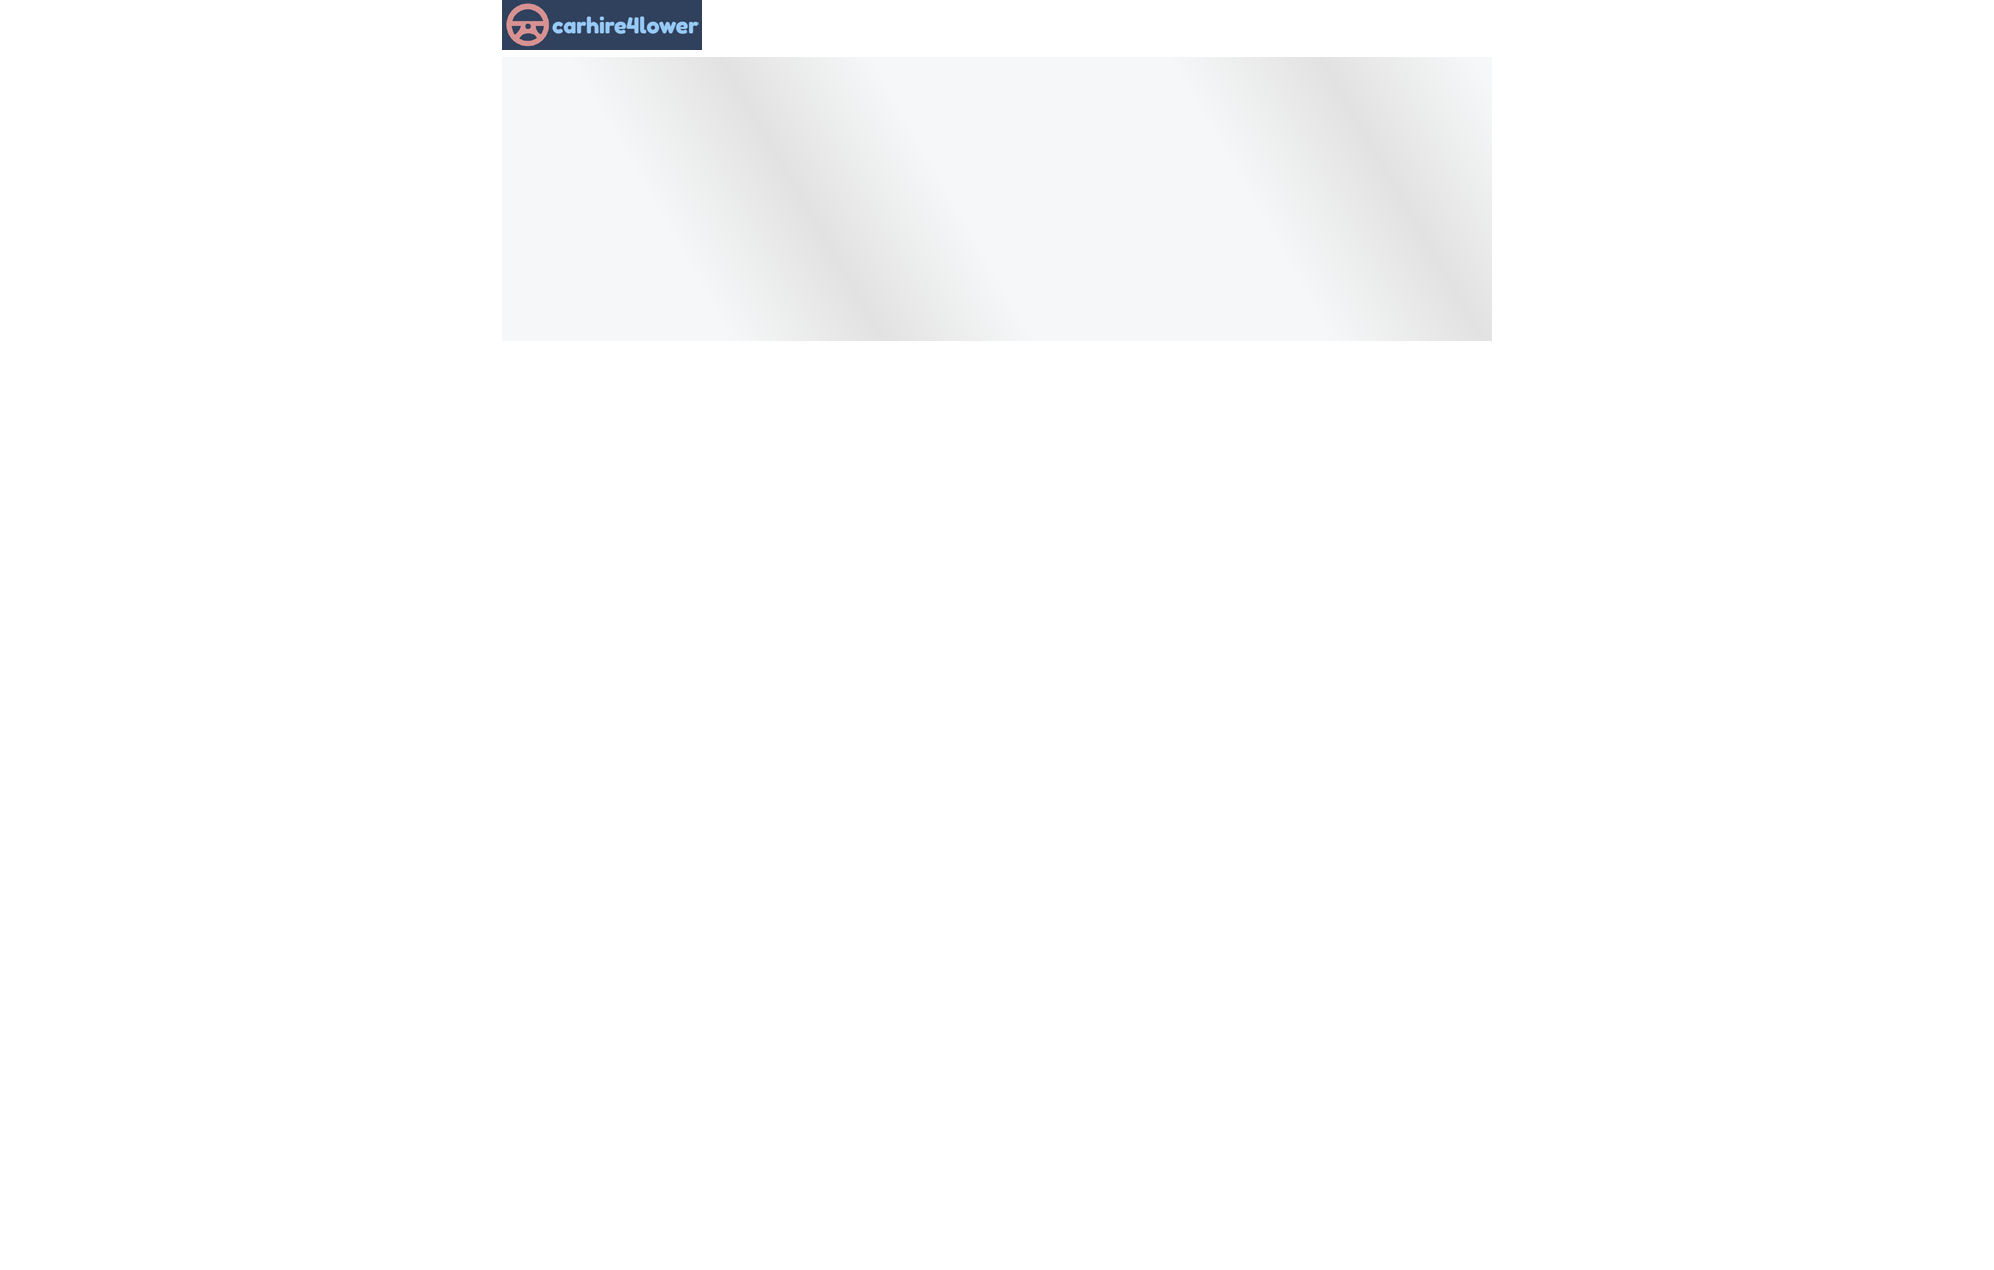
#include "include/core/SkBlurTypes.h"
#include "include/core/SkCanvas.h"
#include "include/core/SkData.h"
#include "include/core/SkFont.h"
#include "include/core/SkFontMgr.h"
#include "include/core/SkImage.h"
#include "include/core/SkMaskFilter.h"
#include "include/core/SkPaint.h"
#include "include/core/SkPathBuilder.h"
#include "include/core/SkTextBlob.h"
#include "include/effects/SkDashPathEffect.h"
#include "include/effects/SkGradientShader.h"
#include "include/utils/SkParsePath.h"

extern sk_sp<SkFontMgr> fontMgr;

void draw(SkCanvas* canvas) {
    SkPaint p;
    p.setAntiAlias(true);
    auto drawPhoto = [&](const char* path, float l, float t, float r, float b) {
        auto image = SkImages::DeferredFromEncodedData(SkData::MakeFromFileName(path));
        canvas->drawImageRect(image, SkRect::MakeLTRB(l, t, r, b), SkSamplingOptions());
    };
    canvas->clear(0xFFFFFFFF);
    drawPhoto("media/1.png", 502, 0, 702, 50);
    {
        const SkColor colors[] = {0xFFF6F7F8, 0xFFF6F7F8, 0xFFE2E2E2, 0xFFF6F7F8, 0xFFF6F7F8};
        const float stops[] = {0, 0.3f, 0.5f, 0.7f, 1};
        const SkPoint ends[] = {{516, 364}, {1088, 34}};
        p.setShader(SkGradientShader::MakeLinear(ends, colors, stops, 5, SkTileMode::kClamp));
        p.setAlpha(255);
    }
    canvas->drawRect(SkRect::MakeLTRB(502, 57, 1102, 341), p);
    {
        const SkColor colors[] = {0xFFF6F7F8, 0xFFF6F7F8, 0xFFE2E2E2, 0xFFF6F7F8, 0xFFF6F7F8};
        const float stops[] = {0, 0.3f, 0.5f, 0.7f, 1};
        const SkPoint ends[] = {{1116, 364}, {1688, 34}};
        p.setShader(SkGradientShader::MakeLinear(ends, colors, stops, 5, SkTileMode::kClamp));
        p.setAlpha(255);
    }
    canvas->drawRect(SkRect::MakeLTRB(1102, 57, 1492, 341), p);
}
